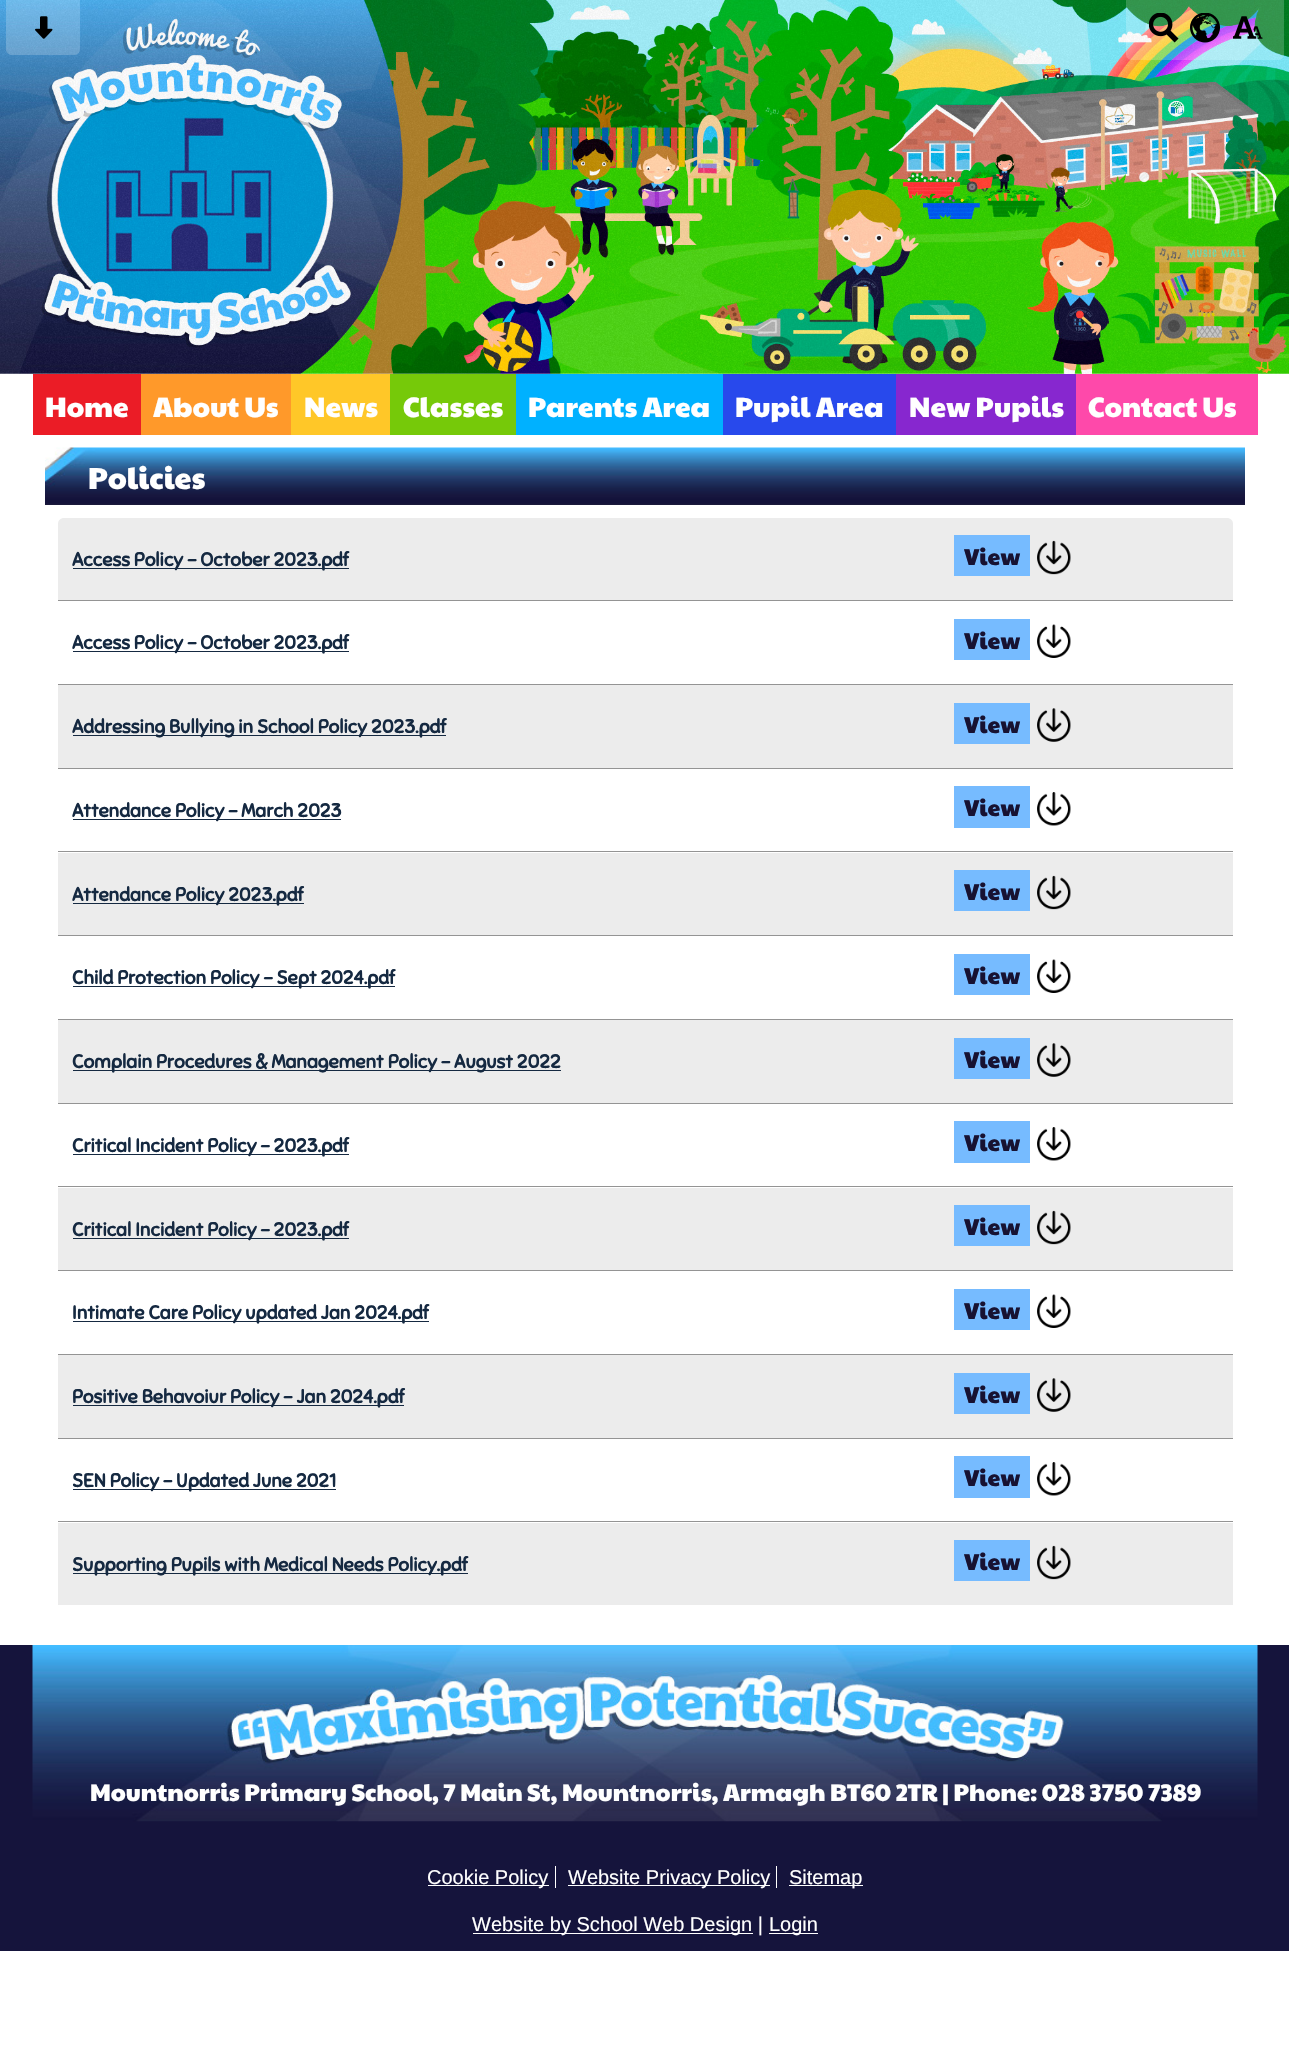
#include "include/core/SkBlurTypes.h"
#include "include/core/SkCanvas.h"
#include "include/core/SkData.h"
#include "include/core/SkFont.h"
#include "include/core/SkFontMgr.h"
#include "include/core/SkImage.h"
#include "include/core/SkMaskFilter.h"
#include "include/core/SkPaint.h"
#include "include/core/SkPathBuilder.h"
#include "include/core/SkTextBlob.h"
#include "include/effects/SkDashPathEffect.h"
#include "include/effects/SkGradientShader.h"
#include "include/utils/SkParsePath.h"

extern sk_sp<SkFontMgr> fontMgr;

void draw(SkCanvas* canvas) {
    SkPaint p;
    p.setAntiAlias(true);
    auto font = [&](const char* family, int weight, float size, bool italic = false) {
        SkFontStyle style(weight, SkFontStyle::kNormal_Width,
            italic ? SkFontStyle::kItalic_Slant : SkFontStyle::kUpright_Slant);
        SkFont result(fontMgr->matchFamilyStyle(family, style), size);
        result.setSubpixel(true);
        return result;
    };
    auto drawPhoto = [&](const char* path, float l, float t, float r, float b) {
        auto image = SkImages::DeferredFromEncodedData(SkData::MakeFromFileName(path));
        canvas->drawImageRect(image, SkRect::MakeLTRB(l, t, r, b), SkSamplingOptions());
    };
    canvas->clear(0xFFFFFFFF);
    drawPhoto("media/1.png", 0, 0, 1289, 374);
    p.setColor(0x33FFFFFF);
    canvas->drawPath(SkPathBuilder().moveTo(6, 0).lineTo(80, 0).lineTo(80, 49).cubicTo(80, 52.5f, 77.5f, 55, 74, 55).lineTo(12, 55).cubicTo(8.5f, 55, 6, 52.5f, 6, 49).close().detach(), p);
    drawPhoto("media/2.png", 35, 16, 53, 39);
    canvas->drawPath(SkPathBuilder().moveTo(1126, 0).lineTo(1284, 0).lineTo(1284, 54).cubicTo(1284, 57.5f, 1281.5f, 60, 1278, 60).lineTo(1132, 60).cubicTo(1128.5f, 60, 1126, 57.5f, 1126, 54).close().detach(), p);
    drawPhoto("media/3.png", 1149, 13, 1179, 43);
    drawPhoto("media/4.png", 1190, 13, 1220, 43);
    drawPhoto("media/5.png", 1233, 16, 1263, 39);
    p.setColor(0xFFFE49AA);
    canvas->drawRect(SkRect::MakeLTRB(1076, 374, 1258, 435), p);
    p.setColor(0xFFEB1C26);
    canvas->drawRect(SkRect::MakeLTRB(33, 374, 141, 435), p);
    auto font1 = font("Paytone One", 400, 28);
    p.setColor(0xFFFFFFFF);
    canvas->drawString("Home", 45, 417, font1, p);
    p.setColor(0xFFFF992A);
    canvas->drawRect(SkRect::MakeLTRB(141, 374, 291, 435), p);
    p.setColor(0xFFFFFFFF);
    canvas->drawString("About Us", 153, 417, font1, p);
    p.setColor(0xFFFFC728);
    canvas->drawRect(SkRect::MakeLTRB(291, 374, 390, 435), p);
    p.setColor(0xFFFFFFFF);
    canvas->drawString("News", 304, 417, font1, p);
    p.setColor(0xFF76C909);
    canvas->drawRect(SkRect::MakeLTRB(390, 374, 516, 435), p);
    p.setColor(0xFFFFFFFF);
    canvas->drawString("Classes", 403, 417, font1, p);
    p.setColor(0xFF00B1FF);
    canvas->drawRect(SkRect::MakeLTRB(516, 374, 723, 435), p);
    p.setColor(0xFFFFFFFF);
    canvas->drawString("Parents Area", 528, 417, font1, p);
    p.setColor(0xFF2849EC);
    canvas->drawRect(SkRect::MakeLTRB(723, 374, 896, 435), p);
    p.setColor(0xFFFFFFFF);
    canvas->drawString("Pupil Area", 735, 417, font1, p);
    p.setColor(0xFF8727CF);
    canvas->drawRect(SkRect::MakeLTRB(896, 374, 1076, 435), p);
    p.setColor(0xFFFFFFFF);
    canvas->drawString("New Pupils", 909, 417, font1, p);
    canvas->drawString("Contact Us", 1088, 417, font1, p);
    p.setColor(0xFF1A193B);
    canvas->drawRect(SkRect::MakeLTRB(45, 503, 1245, 505), p);
    drawPhoto("media/6.png", 45, 447, 1245, 504);
    auto font2 = font("Paytone One", 400, 30.5f);
    p.setColor(0xFFFFFFFF);
    canvas->drawString("Policies", 88, 489, font2, p);
    p.setColor(0xFFECECEC);
    canvas->drawPath(SkPathBuilder().moveTo(64, 518).lineTo(1227, 518).cubicTo(1230.5f, 518, 1233, 520.5f, 1233, 524).lineTo(1233, 601).lineTo(58, 601).lineTo(58, 524).cubicTo(58, 520.5f, 60.5f, 518, 64, 518).close().detach(), p);
    p.setColor(0xFF949494);
    canvas->drawRect(SkRect::MakeLTRB(58, 600, 1233, 601), p);
    p.setColor(0xFF152941);
    canvas->drawRect(SkRect::MakeLTRB(73, 568, 349, 569), p);
    auto font3 = font("Sniglet", 700, 19);
    canvas->drawString("Access Policy - October 2023.pdf", 72, 566, font3, p);
    p.setColor(0xFF76BBFF);
    canvas->drawRect(SkRect::MakeLTRB(954, 535, 1030, 576), p);
    auto font4 = font("Paytone One", 400, 23);
    p.setColor(0xFF171232);
    canvas->drawString("View", 964, 565, font4, p);
    drawPhoto("media/7.png", 1037, 540, 1071, 575);
    p.setColor(0xFF949494);
    canvas->drawRect(SkRect::MakeLTRB(58, 684, 1233, 685), p);
    p.setColor(0xFF152941);
    canvas->drawRect(SkRect::MakeLTRB(73, 651, 349, 652), p);
    canvas->drawString("Access Policy - October 2023.pdf", 72, 649, font3, p);
    p.setColor(0xFF76BBFF);
    canvas->drawRect(SkRect::MakeLTRB(954, 619, 1030, 660), p);
    p.setColor(0xFF171232);
    canvas->drawString("View", 964, 649, font4, p);
    drawPhoto("media/8.png", 1037, 624, 1071, 658);
    {
        const struct { float l, t, r, b; SkColor color; } items[] = {
            {58, 685, 1233, 768, 0xFFECECEC},
            {58, 768, 1233, 769, 0xFF949494},
            {73, 735, 446, 736, 0xFF152941},
        };
        for (auto [l, t, r, b, color] : items) {
            p.setColor(color);
            canvas->drawRect(SkRect::MakeLTRB(l, t, r, b), p);
        }
    }
    canvas->drawString("Addressing Bullying in School Policy 2023.pdf", 72, 733, font3, p);
    p.setColor(0xFF76BBFF);
    canvas->drawRect(SkRect::MakeLTRB(954, 703, 1030, 744), p);
    p.setColor(0xFF171232);
    canvas->drawString("View", 964, 733, font4, p);
    drawPhoto("media/9.png", 1037, 708, 1071, 742);
    p.setColor(0xFF949494);
    canvas->drawRect(SkRect::MakeLTRB(58, 851, 1233, 852), p);
    p.setColor(0xFF152941);
    canvas->drawRect(SkRect::MakeLTRB(73, 819, 341, 820), p);
    canvas->drawString("Attendance Policy - March 2023", 72, 817, font3, p);
    p.setColor(0xFF76BBFF);
    canvas->drawRect(SkRect::MakeLTRB(954, 786, 1030, 828), p);
    p.setColor(0xFF171232);
    canvas->drawString("View", 964, 816, font4, p);
    drawPhoto("media/10.png", 1037, 792, 1071, 826);
    {
        const struct { float l, t, r, b; SkColor color; } items[] = {
            {58, 853, 1233, 935, 0xFFECECEC},
            {58, 935, 1233, 936, 0xFF949494},
            {73, 903, 304, 904, 0xFF152941},
        };
        for (auto [l, t, r, b, color] : items) {
            p.setColor(color);
            canvas->drawRect(SkRect::MakeLTRB(l, t, r, b), p);
        }
    }
    canvas->drawString("Attendance Policy 2023.pdf", 72, 901, font3, p);
    p.setColor(0xFF76BBFF);
    canvas->drawRect(SkRect::MakeLTRB(954, 870, 1030, 911), p);
    p.setColor(0xFF171232);
    canvas->drawString("View", 964, 900, font4, p);
    drawPhoto("media/11.png", 1037, 875, 1071, 910);
    p.setColor(0xFF949494);
    canvas->drawRect(SkRect::MakeLTRB(58, 1019, 1233, 1020), p);
    p.setColor(0xFF152941);
    canvas->drawRect(SkRect::MakeLTRB(73, 986, 395, 987), p);
    canvas->drawString("Child Protection Policy - Sept 2024.pdf", 72, 984, font3, p);
    p.setColor(0xFF76BBFF);
    canvas->drawRect(SkRect::MakeLTRB(954, 954, 1030, 995), p);
    p.setColor(0xFF171232);
    canvas->drawString("View", 964, 984, font4, p);
    drawPhoto("media/12.png", 1037, 959, 1071, 993);
    {
        const struct { float l, t, r, b; SkColor color; } items[] = {
            {58, 1020, 1233, 1103, 0xFFECECEC},
            {58, 1103, 1233, 1104, 0xFF949494},
            {73, 1070, 561, 1071, 0xFF152941},
        };
        for (auto [l, t, r, b, color] : items) {
            p.setColor(color);
            canvas->drawRect(SkRect::MakeLTRB(l, t, r, b), p);
        }
    }
    canvas->drawString("Complain Procedures & Management Policy - August 2022", 72, 1068, font3, p);
    p.setColor(0xFF76BBFF);
    canvas->drawRect(SkRect::MakeLTRB(954, 1038, 1030, 1079), p);
    p.setColor(0xFF171232);
    canvas->drawString("View", 964, 1068, font4, p);
    drawPhoto("media/13.png", 1037, 1043, 1071, 1077);
    p.setColor(0xFF949494);
    canvas->drawRect(SkRect::MakeLTRB(58, 1186, 1233, 1187), p);
    p.setColor(0xFF152941);
    canvas->drawRect(SkRect::MakeLTRB(73, 1154, 349, 1155), p);
    canvas->drawString("Critical Incident Policy - 2023.pdf", 72, 1152, font3, p);
    p.setColor(0xFF76BBFF);
    canvas->drawRect(SkRect::MakeLTRB(954, 1121, 1030, 1163), p);
    p.setColor(0xFF171232);
    canvas->drawString("View", 964, 1151, font4, p);
    drawPhoto("media/14.png", 1037, 1127, 1071, 1161);
    {
        const struct { float l, t, r, b; SkColor color; } items[] = {
            {58, 1188, 1233, 1270, 0xFFECECEC},
            {58, 1270, 1233, 1271, 0xFF949494},
            {73, 1238, 349, 1239, 0xFF152941},
        };
        for (auto [l, t, r, b, color] : items) {
            p.setColor(color);
            canvas->drawRect(SkRect::MakeLTRB(l, t, r, b), p);
        }
    }
    canvas->drawString("Critical Incident Policy - 2023.pdf", 72, 1236, font3, p);
    p.setColor(0xFF76BBFF);
    canvas->drawRect(SkRect::MakeLTRB(954, 1205, 1030, 1246), p);
    p.setColor(0xFF171232);
    canvas->drawString("View", 964, 1235, font4, p);
    drawPhoto("media/11.png", 1037, 1210, 1071, 1245);
    p.setColor(0xFF949494);
    canvas->drawRect(SkRect::MakeLTRB(58, 1354, 1233, 1355), p);
    p.setColor(0xFF152941);
    canvas->drawRect(SkRect::MakeLTRB(73, 1321, 429, 1322), p);
    canvas->drawString("Intimate Care Policy updated Jan 2024.pdf", 72, 1319, font3, p);
    p.setColor(0xFF76BBFF);
    canvas->drawRect(SkRect::MakeLTRB(954, 1289, 1030, 1330), p);
    p.setColor(0xFF171232);
    canvas->drawString("View", 964, 1319, font4, p);
    drawPhoto("media/15.png", 1037, 1294, 1071, 1328);
    {
        const struct { float l, t, r, b; SkColor color; } items[] = {
            {58, 1355, 1233, 1438, 0xFFECECEC},
            {58, 1438, 1233, 1439, 0xFF949494},
            {73, 1405, 404, 1406, 0xFF152941},
        };
        for (auto [l, t, r, b, color] : items) {
            p.setColor(color);
            canvas->drawRect(SkRect::MakeLTRB(l, t, r, b), p);
        }
    }
    canvas->drawString("Positive Behavoiur Policy - Jan 2024.pdf", 72, 1403, font3, p);
    p.setColor(0xFF76BBFF);
    canvas->drawRect(SkRect::MakeLTRB(954, 1373, 1030, 1414), p);
    p.setColor(0xFF171232);
    canvas->drawString("View", 964, 1403, font4, p);
    drawPhoto("media/16.png", 1037, 1378, 1071, 1412);
    p.setColor(0xFF949494);
    canvas->drawRect(SkRect::MakeLTRB(58, 1521, 1233, 1522), p);
    p.setColor(0xFF152941);
    canvas->drawRect(SkRect::MakeLTRB(73, 1489, 336, 1490), p);
    canvas->drawString("SEN Policy - Updated June 2021", 72, 1487, font3, p);
    p.setColor(0xFF76BBFF);
    canvas->drawRect(SkRect::MakeLTRB(954, 1456, 1030, 1498), p);
    p.setColor(0xFF171232);
    canvas->drawString("View", 964, 1486, font4, p);
    drawPhoto("media/17.png", 1037, 1462, 1071, 1496);
    p.setColor(0xFFECECEC);
    canvas->drawRect(SkRect::MakeLTRB(58, 1523, 1233, 1605), p);
    p.setColor(0xFF152941);
    canvas->drawRect(SkRect::MakeLTRB(73, 1573, 468, 1574), p);
    canvas->drawString("Supporting Pupils with Medical Needs Policy.pdf", 72, 1571, font3, p);
    p.setColor(0xFF76BBFF);
    canvas->drawRect(SkRect::MakeLTRB(954, 1540, 1030, 1581), p);
    p.setColor(0xFF171232);
    canvas->drawString("View", 964, 1570, font4, p);
    drawPhoto("media/18.png", 1037, 1545, 1071, 1580);
    p.setColor(0xFF15143C);
    canvas->drawRect(SkRect::MakeLTRB(0, 1645, 1289, 1951), p);
    drawPhoto("media/19.png", 32, 1645, 1258, 1822);
    auto font5 = font("Paytone One", 400, 24);
    p.setColor(0xFFFFFFFF);
    canvas->drawString("Mountnorris Primary School, 7 Main St, Mountnorris, Armagh BT60 2TR | Phone: 028 3750 7389", 90, 1801, font5, p);
    canvas->drawRect(SkRect::MakeLTRB(428, 1885, 549, 1886), p);
    auto font6 = font("Liberation Sans", 400, 20);
    canvas->drawString("Cookie Policy", 427, 1884, font6, p);
    canvas->drawRect(SkRect::MakeLTRB(555, 1866, 556, 1888), p);
    canvas->drawRect(SkRect::MakeLTRB(568, 1885, 770, 1886), p);
    canvas->drawString("Website Privacy Policy", 568, 1884, font6, p);
    canvas->drawRect(SkRect::MakeLTRB(776, 1866, 777, 1888), p);
    canvas->drawRect(SkRect::MakeLTRB(789, 1885, 863, 1886), p);
    canvas->drawString("Sitemap", 789, 1884, font6, p);
    canvas->drawRect(SkRect::MakeLTRB(473, 1933, 753, 1934), p);
    canvas->drawString("Website by School Web Design |", 472, 1931, font6, p);
    canvas->drawRect(SkRect::MakeLTRB(769, 1933, 818, 1934), p);
    canvas->drawString("Login", 769, 1931, font6, p);
}
